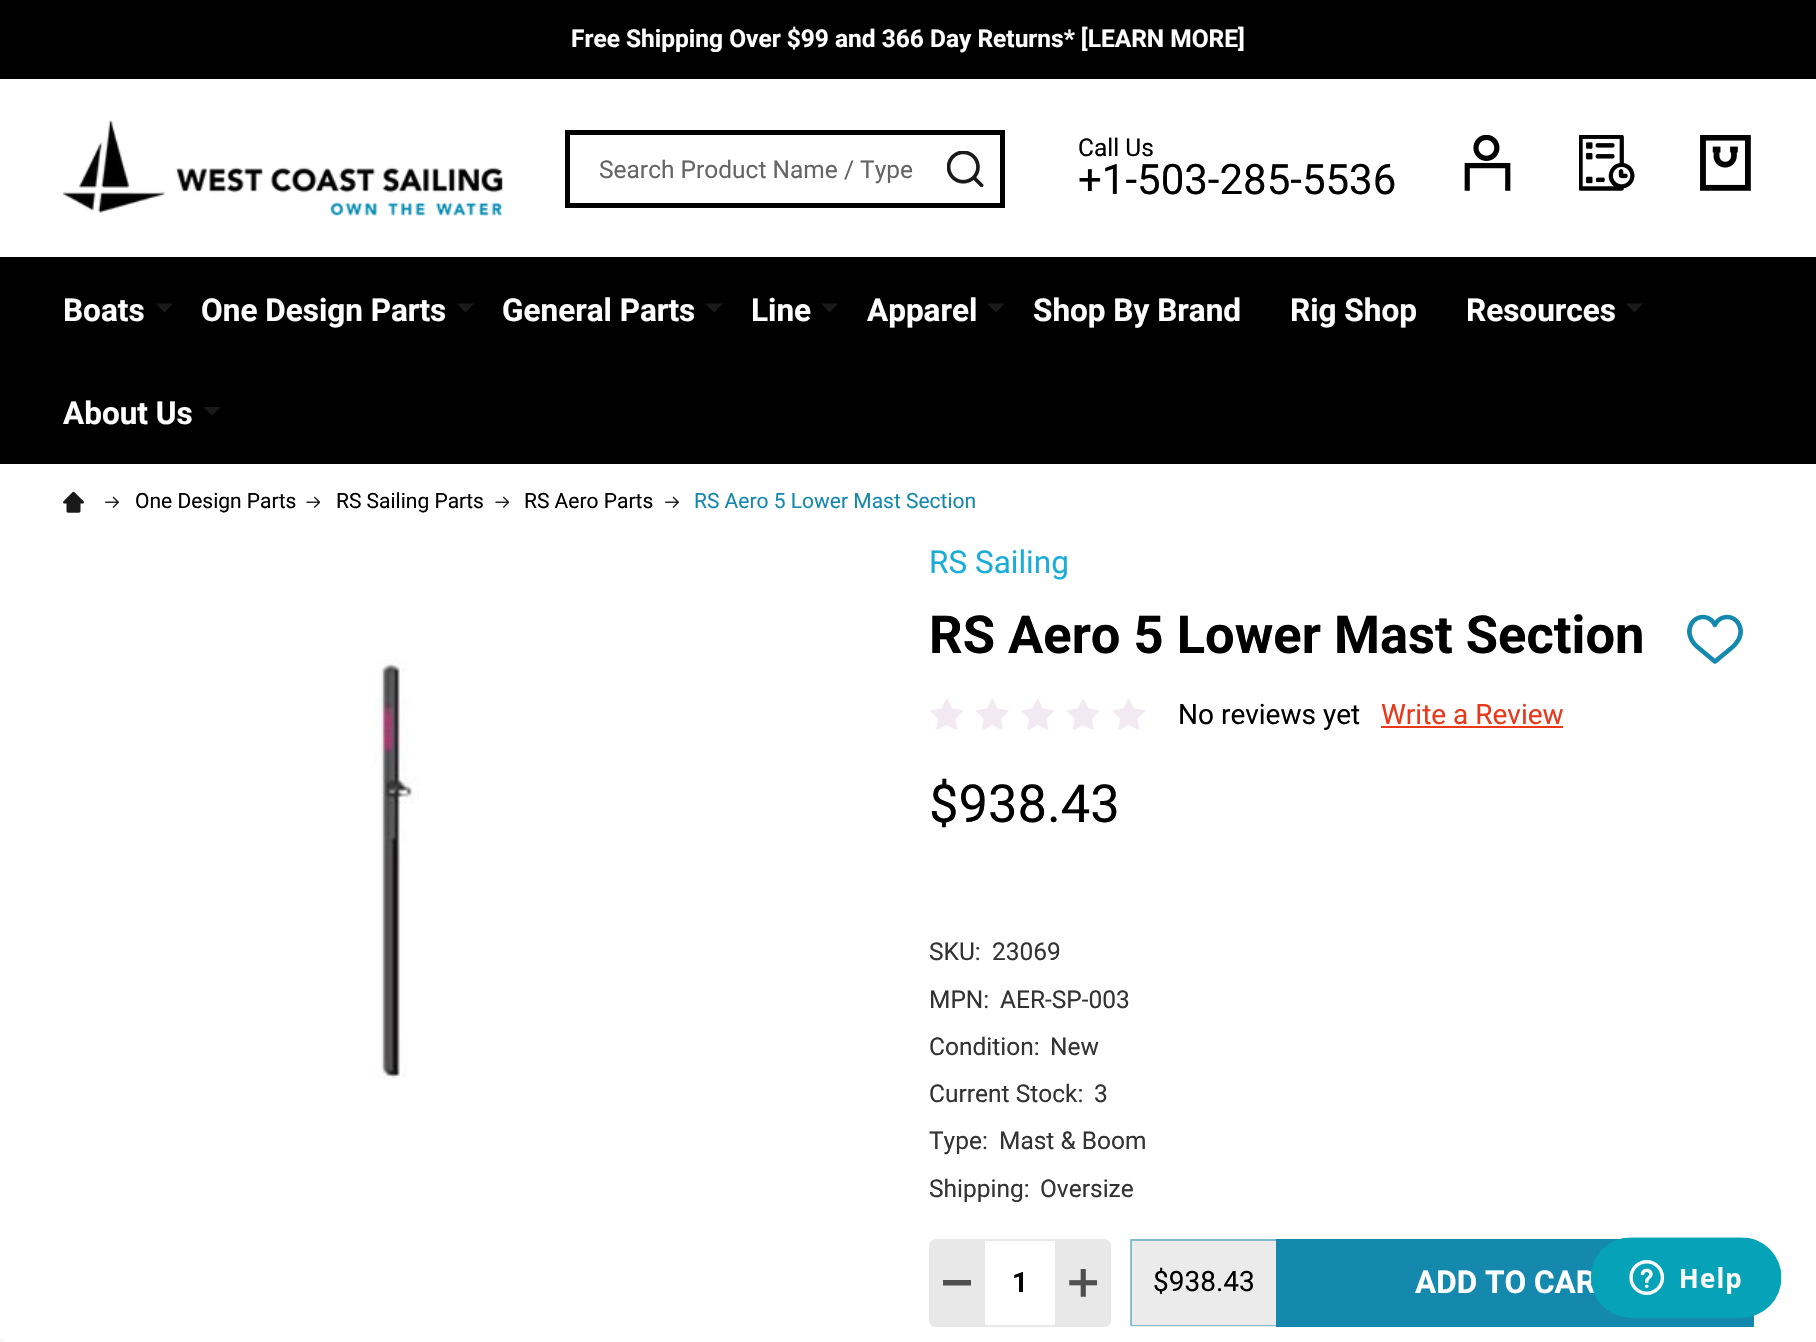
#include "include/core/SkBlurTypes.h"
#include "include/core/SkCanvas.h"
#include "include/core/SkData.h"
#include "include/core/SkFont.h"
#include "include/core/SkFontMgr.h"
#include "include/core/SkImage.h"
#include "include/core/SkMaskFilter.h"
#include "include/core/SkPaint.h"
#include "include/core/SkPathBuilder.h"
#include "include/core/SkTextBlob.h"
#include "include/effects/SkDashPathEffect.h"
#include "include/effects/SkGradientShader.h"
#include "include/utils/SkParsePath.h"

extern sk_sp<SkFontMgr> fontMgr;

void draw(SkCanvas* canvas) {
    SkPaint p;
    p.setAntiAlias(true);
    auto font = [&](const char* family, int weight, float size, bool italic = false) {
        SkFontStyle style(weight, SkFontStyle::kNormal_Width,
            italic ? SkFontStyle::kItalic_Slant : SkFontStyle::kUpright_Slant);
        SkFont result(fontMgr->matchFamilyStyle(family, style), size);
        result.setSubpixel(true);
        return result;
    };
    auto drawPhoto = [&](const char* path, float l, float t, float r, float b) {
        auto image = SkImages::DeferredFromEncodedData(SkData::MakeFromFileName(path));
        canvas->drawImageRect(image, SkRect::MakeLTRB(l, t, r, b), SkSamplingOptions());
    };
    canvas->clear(0xFFFFFFFF);
    p.setColor(0xFF000000);
    canvas->drawRect(SkRect::MakeLTRB(0, 0, 1816, 79), p);
    auto font1 = font("Roboto", 700, 24.5f);
    p.setColor(0xFFFFFFFF);
    canvas->drawString("Free Shipping Over $99 and 366 Day Returns* [LEARN MORE]", 571, 47, font1, p);
    drawPhoto("media/1.png", 63, 120, 503, 216);
    p.setStyle(SkPaint::kStroke_Style);
    p.setStrokeWidth(5);
    p.setColor(0xFF000000);
    canvas->drawRect(SkRect::MakeLTRB(567.5f, 132.5f, 1002.5f, 205.5f), p);
    auto font2 = font("Roboto", 400, 24.5f);
    p.setStyle(SkPaint::kFill_Style);
    p.setColor(0xFF666666);
    canvas->drawString("Search Product Name / Type", 599, 178, font2, p);
    drawPhoto("media/2.png", 947, 151, 984, 187);
    p.setColor(0xFF000000);
    canvas->drawString("Call Us", 1078, 156, font2, p);
    auto font3 = font("Roboto", 400, 42);
    canvas->drawString("+1-503-285-5536", 1078, 194, font3, p);
    drawPhoto("media/3.png", 1464, 135, 1511, 191);
    drawPhoto("media/4.png", 1579, 135, 1635, 191);
    drawPhoto("media/5.png", 1700, 135, 1751, 191);
    canvas->drawRect(SkRect::MakeLTRB(0, 257, 1816, 464), p);
    auto font4 = font("Roboto", 700, 31.5f);
    p.setColor(0xFFFFFFFF);
    canvas->drawString("Boats", 63, 321, font4, p);
    p.setColor(0xFF1A1A1A);
    canvas->drawPath(SkPathBuilder().moveTo(156, 303.5f).lineTo(164.5f, 312.5f).lineTo(173, 303.5f).close().detach(), p);
    p.setColor(0xFFFFFFFF);
    canvas->drawString("One Design Parts", 201, 321, font4, p);
    p.setColor(0xFF1A1A1A);
    canvas->drawPath(SkPathBuilder().moveTo(457, 303.5f).lineTo(465.5f, 312.5f).lineTo(474, 303.5f).close().detach(), p);
    p.setColor(0xFFFFFFFF);
    canvas->drawString("General Parts", 502, 321, font4, p);
    p.setColor(0xFF1A1A1A);
    canvas->drawPath(SkPathBuilder().moveTo(705, 303.5f).lineTo(714, 312.5f).lineTo(723, 303.5f).close().detach(), p);
    p.setColor(0xFFFFFFFF);
    canvas->drawString("Line", 751, 321, font4, p);
    p.setColor(0xFF1A1A1A);
    canvas->drawPath(SkPathBuilder().moveTo(821, 303.5f).lineTo(829.5f, 312.5f).lineTo(838, 303.5f).close().detach(), p);
    p.setColor(0xFFFFFFFF);
    canvas->drawString("Apparel", 867, 321, font4, p);
    p.setColor(0xFF1A1A1A);
    canvas->drawPath(SkPathBuilder().moveTo(987, 303.5f).lineTo(996, 312.5f).lineTo(1004.5f, 303.5f).close().detach(), p);
    p.setColor(0xFFFFFFFF);
    {
        const struct { const char* s; float x, y; } items[] = {
            {"Shop By Brand", 1033, 321},
            {"Rig Shop", 1290, 321},
            {"Resources", 1466, 321},
        };
        for (auto [s, x, y] : items) {
            canvas->drawString(s, x, y, font4, p);
        }
    }
    p.setColor(0xFF1A1A1A);
    canvas->drawPath(SkPathBuilder().moveTo(1626, 303.5f).lineTo(1634.5f, 312.5f).lineTo(1643, 303.5f).close().detach(), p);
    p.setColor(0xFFFFFFFF);
    canvas->drawString("About Us", 63, 424, font4, p);
    p.setColor(0xFF1A1A1A);
    canvas->drawPath(SkPathBuilder().moveTo(203, 407).lineTo(212, 415.5f).lineTo(220.5f, 407).close().detach(), p);
    drawPhoto("media/6.png", 63, 492, 84, 513);
    drawPhoto("media/7.png", 105, 496, 119, 508);
    auto font5 = font("Roboto", 400, 21);
    p.setColor(0xFF000000);
    canvas->drawString("One Design Parts", 135, 508, font5, p);
    drawPhoto("media/8.png", 306, 496, 320, 508);
    canvas->drawString("RS Sailing Parts", 336, 508, font5, p);
    drawPhoto("media/8.png", 495, 496, 509, 508);
    canvas->drawString("RS Aero Parts", 524, 508, font5, p);
    drawPhoto("media/7.png", 665, 496, 679, 508);
    p.setColor(0xFF1589AD);
    canvas->drawString("RS Aero 5 Lower Mast Section", 694, 508, font5, p);
    drawPhoto("media/9.png", 374, 659, 419, 1079);
    auto font6 = font("Roboto", 400, 31.5f);
    p.setColor(0xFF1BADDA);
    canvas->drawString("RS Sailing", 929, 573, font6, p);
    auto font7 = font("Roboto", 700, 52.5f);
    p.setColor(0xFF000000);
    canvas->drawString("RS Aero 5 Lower Mast Section", 929, 653, font7, p);
    drawPhoto("media/10.png", 1687, 614, 1743, 664);
    drawPhoto("media/11.png", 930, 699, 963, 730);
    drawPhoto("media/12.png", 976, 699, 1009, 730);
    drawPhoto("media/11.png", 1021, 699, 1054, 730);
    drawPhoto("media/12.png", 1067, 699, 1100, 730);
    drawPhoto("media/11.png", 1112, 699, 1145, 730);
    auto font8 = font("Roboto", 400, 28);
    canvas->drawString("No reviews yet", 1178, 724, font8, p);
    p.setColor(0xFFEB381B);
    canvas->drawString("Write a Review", 1381, 724, font8, p);
    canvas->drawRect(SkRect::MakeLTRB(1381, 726, 1563, 728), p);
    auto font9 = font("Roboto", 400, 52.5f);
    p.setColor(0xFF000000);
    canvas->drawString("$938.43", 929, 822, font9, p);
    p.setColor(0xFF333333);
    {
        const struct { const char* s; float x, y; } items[] = {
            {"SKU:", 929, 960},
            {"23069", 992, 960},
            {"MPN:", 929, 1008},
            {"AER-SP-003", 1000, 1008},
            {"Condition:", 929, 1055},
            {"New", 1050, 1055},
            {"Current Stock:", 929, 1102},
            {"3", 1094, 1102},
            {"Type:", 929, 1149},
            {"Mast & Boom", 999, 1149},
            {"Shipping:", 929, 1197},
            {"Oversize", 1040, 1197},
        };
        for (auto [s, x, y] : items) {
            canvas->drawString(s, x, y, font2, p);
        }
    }
    p.setColor(0xFFE8E8E8);
    canvas->drawPath(SkPathBuilder().moveTo(936, 1239).lineTo(985, 1239).lineTo(985, 1327).lineTo(936, 1327).cubicTo(932, 1327, 929, 1324, 929, 1320).lineTo(929, 1246).cubicTo(929, 1242, 932, 1239, 936, 1239).close().detach(), p);
    p.setColor(0xFF4F4F4F);
    canvas->drawPath(SkPathBuilder().moveTo(943, 1285.5f).lineTo(943, 1280).lineTo(971, 1280).lineTo(971, 1285.5f).detach(), p);
    p.setColor(0xFFE8E8E8);
    canvas->drawRect(SkRect::MakeLTRB(985, 1239, 1055, 1241), p);
    canvas->drawRect(SkRect::MakeLTRB(985, 1325, 1055, 1327), p);
    auto font10 = font("Roboto", 700, 28);
    p.setColor(0xFF000000);
    canvas->drawString("1", 1012, 1292, font10, p);
    p.setColor(0xFFE8E8E8);
    canvas->drawPath(SkPathBuilder().moveTo(1055, 1239).lineTo(1104, 1239).cubicTo(1108, 1239, 1111, 1242, 1111, 1246).lineTo(1111, 1320).cubicTo(1111, 1324, 1108, 1327, 1104, 1327).lineTo(1055, 1327).close().detach(), p);
    drawPhoto("media/13.png", 1069, 1269, 1097, 1297);
    p.setColor(0xFFEBEBEB);
    canvas->drawRect(SkRect::MakeLTRB(1131, 1240, 1276, 1327), p);
    p.setColor(0xFF80BACC);
    canvas->drawPath(SkPathBuilder().moveTo(1130, 1239).lineTo(1276, 1239).lineTo(1276, 1241).lineTo(1132, 1241).close().detach(), p);
    canvas->drawPath(SkPathBuilder().moveTo(1276, 1326).lineTo(1130, 1326).lineTo(1132, 1325).lineTo(1276, 1325).close().detach(), p);
    p.setColor(0x801589AD);
    canvas->drawPath(SkPathBuilder().moveTo(1130, 1326).lineTo(1130, 1239).lineTo(1132, 1241).lineTo(1132, 1325).close().detach(), p);
    p.setColor(0xFF000000);
    canvas->drawString("$938.43", 1153, 1291, font8, p);
    p.setColor(0xFF1589AD);
    canvas->drawRect(SkRect::MakeLTRB(1276, 1239, 1754, 1327), p);
    p.setColor(0xFFFFFFFF);
    canvas->drawString("ADD TO CAR", 1415, 1293, font4, p);
    drawPhoto("media/14.png", 1591, 1237, 1782, 1318);
    p.setColor(0xFFF5F5F5);
    canvas->drawRect(SkRect::MakeLTRB(0, 1339, 4, 1342), p);
}
